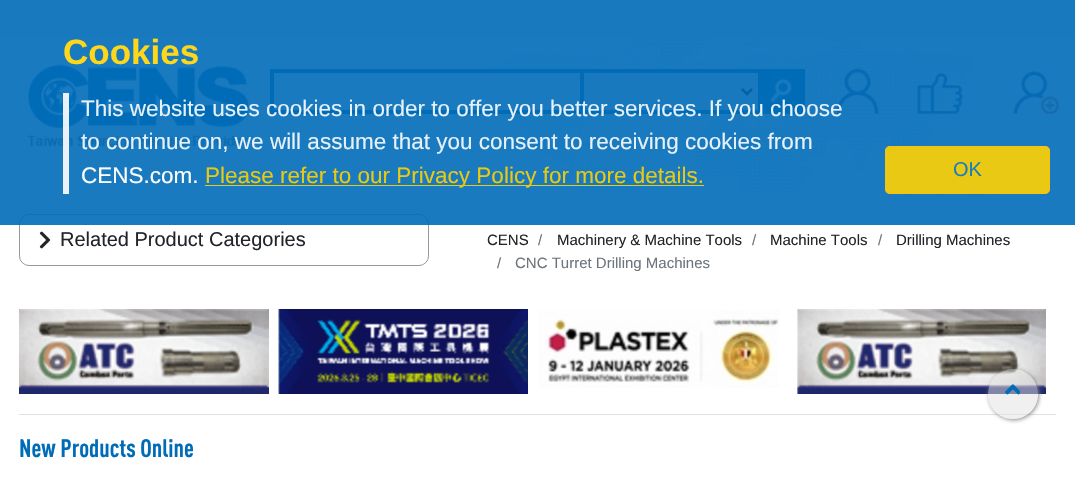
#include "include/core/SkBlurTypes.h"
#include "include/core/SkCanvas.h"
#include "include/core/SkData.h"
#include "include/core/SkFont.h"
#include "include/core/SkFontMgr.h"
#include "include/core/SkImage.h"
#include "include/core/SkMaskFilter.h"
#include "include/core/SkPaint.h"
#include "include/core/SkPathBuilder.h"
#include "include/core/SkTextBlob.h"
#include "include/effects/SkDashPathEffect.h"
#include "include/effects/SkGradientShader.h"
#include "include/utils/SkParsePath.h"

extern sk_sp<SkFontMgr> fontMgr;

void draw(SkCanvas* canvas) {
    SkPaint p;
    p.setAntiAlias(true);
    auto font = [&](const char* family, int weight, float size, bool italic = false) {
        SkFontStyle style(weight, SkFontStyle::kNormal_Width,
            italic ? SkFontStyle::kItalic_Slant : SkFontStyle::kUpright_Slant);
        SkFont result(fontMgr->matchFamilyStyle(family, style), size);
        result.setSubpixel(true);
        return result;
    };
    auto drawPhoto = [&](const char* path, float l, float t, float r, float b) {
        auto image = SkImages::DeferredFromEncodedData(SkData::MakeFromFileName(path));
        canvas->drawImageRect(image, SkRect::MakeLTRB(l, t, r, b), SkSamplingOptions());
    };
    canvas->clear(0xFFFFFFFF);
    p.setColor(0xFFF5F5F5);
    canvas->drawRect(SkRect::MakeLTRB(0, 0, 1075, 38), p);
    drawPhoto("media/1.png", 492, 37, 998, 195);
    drawPhoto("media/2.png", 27, 64, 250, 149);
    {
        const struct { float l, t, r, b; SkColor color; } items[] = {
            {270, 69, 805, 114, 0xFF006CB8},
            {274, 73, 580, 110, 0xFFFFFFFF},
            {584, 73, 758, 110, 0xFFEFEFEF},
        };
        for (auto [l, t, r, b, color] : items) {
            p.setColor(color);
            canvas->drawRect(SkRect::MakeLTRB(l, t, r, b), p);
        }
    }
    p.setStyle(SkPaint::kStroke_Style);
    p.setStrokeWidth(2.5f);
    p.setColor(0xFF000000);
    canvas->drawPath(SkPathBuilder().moveTo(742, 89).lineTo(747, 94).lineTo(752, 89).detach(), p);
    drawPhoto("media/3.png", 762, 72, 800, 110);
    drawPhoto("media/4.png", 836, 68, 879, 114);
    drawPhoto("media/5.png", 917, 73, 963, 114);
    drawPhoto("media/6.png", 1013, 71, 1059, 114);
    p.setStrokeWidth(1);
    p.setColor(0xFF999999);
    canvas->drawRoundRect(SkRect::MakeLTRB(19.5f, 214.5f, 428.5f, 265.5f), 9.5f, 9.5f, p);
    p.setStyle(SkPaint::kFill_Style);
    p.setColor(0xE6006CB8);
    canvas->drawRect(SkRect::MakeLTRB(0, 0, 1075, 225), p);
    auto font1 = font("Liberation Sans", 700, 35);
    p.setColor(0xFFFFD71A);
    canvas->drawString("Cookies", 63, 64, font1, p);
    p.setColor(0xE6FFFFFF);
    canvas->drawRect(SkRect::MakeLTRB(63, 93, 69, 194), p);
    auto font2 = font("Liberation Sans", 400, 22.5f);
    p.setColor(0xFFE7F1F8);
    canvas->drawString("This website uses cookies in order to offer you better services. If you choose", 81, 116, font2, p);
    canvas->drawString("to continue on, we will assume that you consent to receiving cookies from", 81, 149, font2, p);
    p.setColor(0xFFFFFFFF);
    canvas->drawString("CENS.com.", 81, 183, font2, p);
    p.setColor(0xFFE8C913);
    canvas->drawRect(SkRect::MakeLTRB(205, 185, 704, 186), p);
    canvas->drawString("Please refer to our Privacy Policy for more details.", 205, 183, font2, p);
    p.setColor(0xE6FFD200);
    canvas->drawRoundRect(SkRect::MakeLTRB(885, 146, 1050, 194), 5, 5, p);
    p.setStyle(SkPaint::kStroke_Style);
    p.setColor(0xE6FFC107);
    canvas->drawRoundRect(SkRect::MakeLTRB(885.5f, 146.5f, 1049.5f, 193.5f), 4.5f, 4.5f, p);
    auto font3 = font("Liberation Sans", 400, 20);
    p.setStyle(SkPaint::kFill_Style);
    p.setColor(0xFF1A7BBF);
    canvas->drawString("OK", 953, 176, font3, p);
    drawPhoto("media/7.png", 39, 231, 51, 249);
    p.setColor(0xFF212529);
    canvas->drawString("Related Product Categories", 60, 246, font3, p);
    auto font4 = font("Liberation Sans", 400, 15);
    canvas->drawString("CENS", 487, 245, font4, p);
    p.setColor(0xFF6C757D);
    canvas->drawString("/", 538, 245, font4, p);
    p.setColor(0xFF212529);
    canvas->drawString("Machinery & Machine Tools", 557, 245, font4, p);
    p.setColor(0xFF6C757D);
    canvas->drawString("/", 752, 245, font4, p);
    p.setColor(0xFF212529);
    canvas->drawString("Machine Tools", 770, 245, font4, p);
    p.setColor(0xFF6C757D);
    canvas->drawString("/", 878, 245, font4, p);
    p.setColor(0xFF212529);
    canvas->drawString("Drilling Machines", 896, 245, font4, p);
    p.setColor(0xFF6C757D);
    canvas->drawString("/", 497, 268, font4, p);
    canvas->drawString("CNC Turret Drilling Machines", 515, 268, font4, p);
    p.setColor(0xFFDEE2E6);
    canvas->drawRect(SkRect::MakeLTRB(19, 414, 1056, 415), p);
    drawPhoto("media/12.png", 797, 309, 1046, 394);
    canvas->save();
    canvas->clipPath(SkPathBuilder(SkPathFillType::kEvenOdd).moveTo(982, 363).lineTo(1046, 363).lineTo(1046, 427).lineTo(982, 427).close().moveTo(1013, 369).cubicTo(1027, 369, 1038, 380, 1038, 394).cubicTo(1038, 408, 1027, 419, 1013, 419).cubicTo(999, 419, 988, 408, 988, 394).cubicTo(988, 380, 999, 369, 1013, 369).close().detach(), true);
    p.setColor(0xFF888888);
    p.setMaskFilter(SkMaskFilter::MakeBlur(kNormal_SkBlurStyle, 2));
    canvas->drawRoundRect(SkRect::MakeLTRB(989, 370, 1039, 420), 25, 25, p);
    p.setMaskFilter(nullptr);
    canvas->restore();
    p.setColor(0x80E2E2E2);
    canvas->drawCircle(1013, 394, 25, p);
    drawPhoto("media/8.png", 1005, 384, 1020, 395);
    drawPhoto("media/9.png", 19, 309, 269, 394);
    drawPhoto("media/10.png", 278, 309, 528, 394);
    drawPhoto("media/11.png", 538, 309, 779, 388);
    auto font5 = font("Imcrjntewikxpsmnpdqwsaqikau", 700, 25);
    p.setColor(0xFF006CB8);
    canvas->drawString("New Products Online", 19, 457, font5, p);
}
